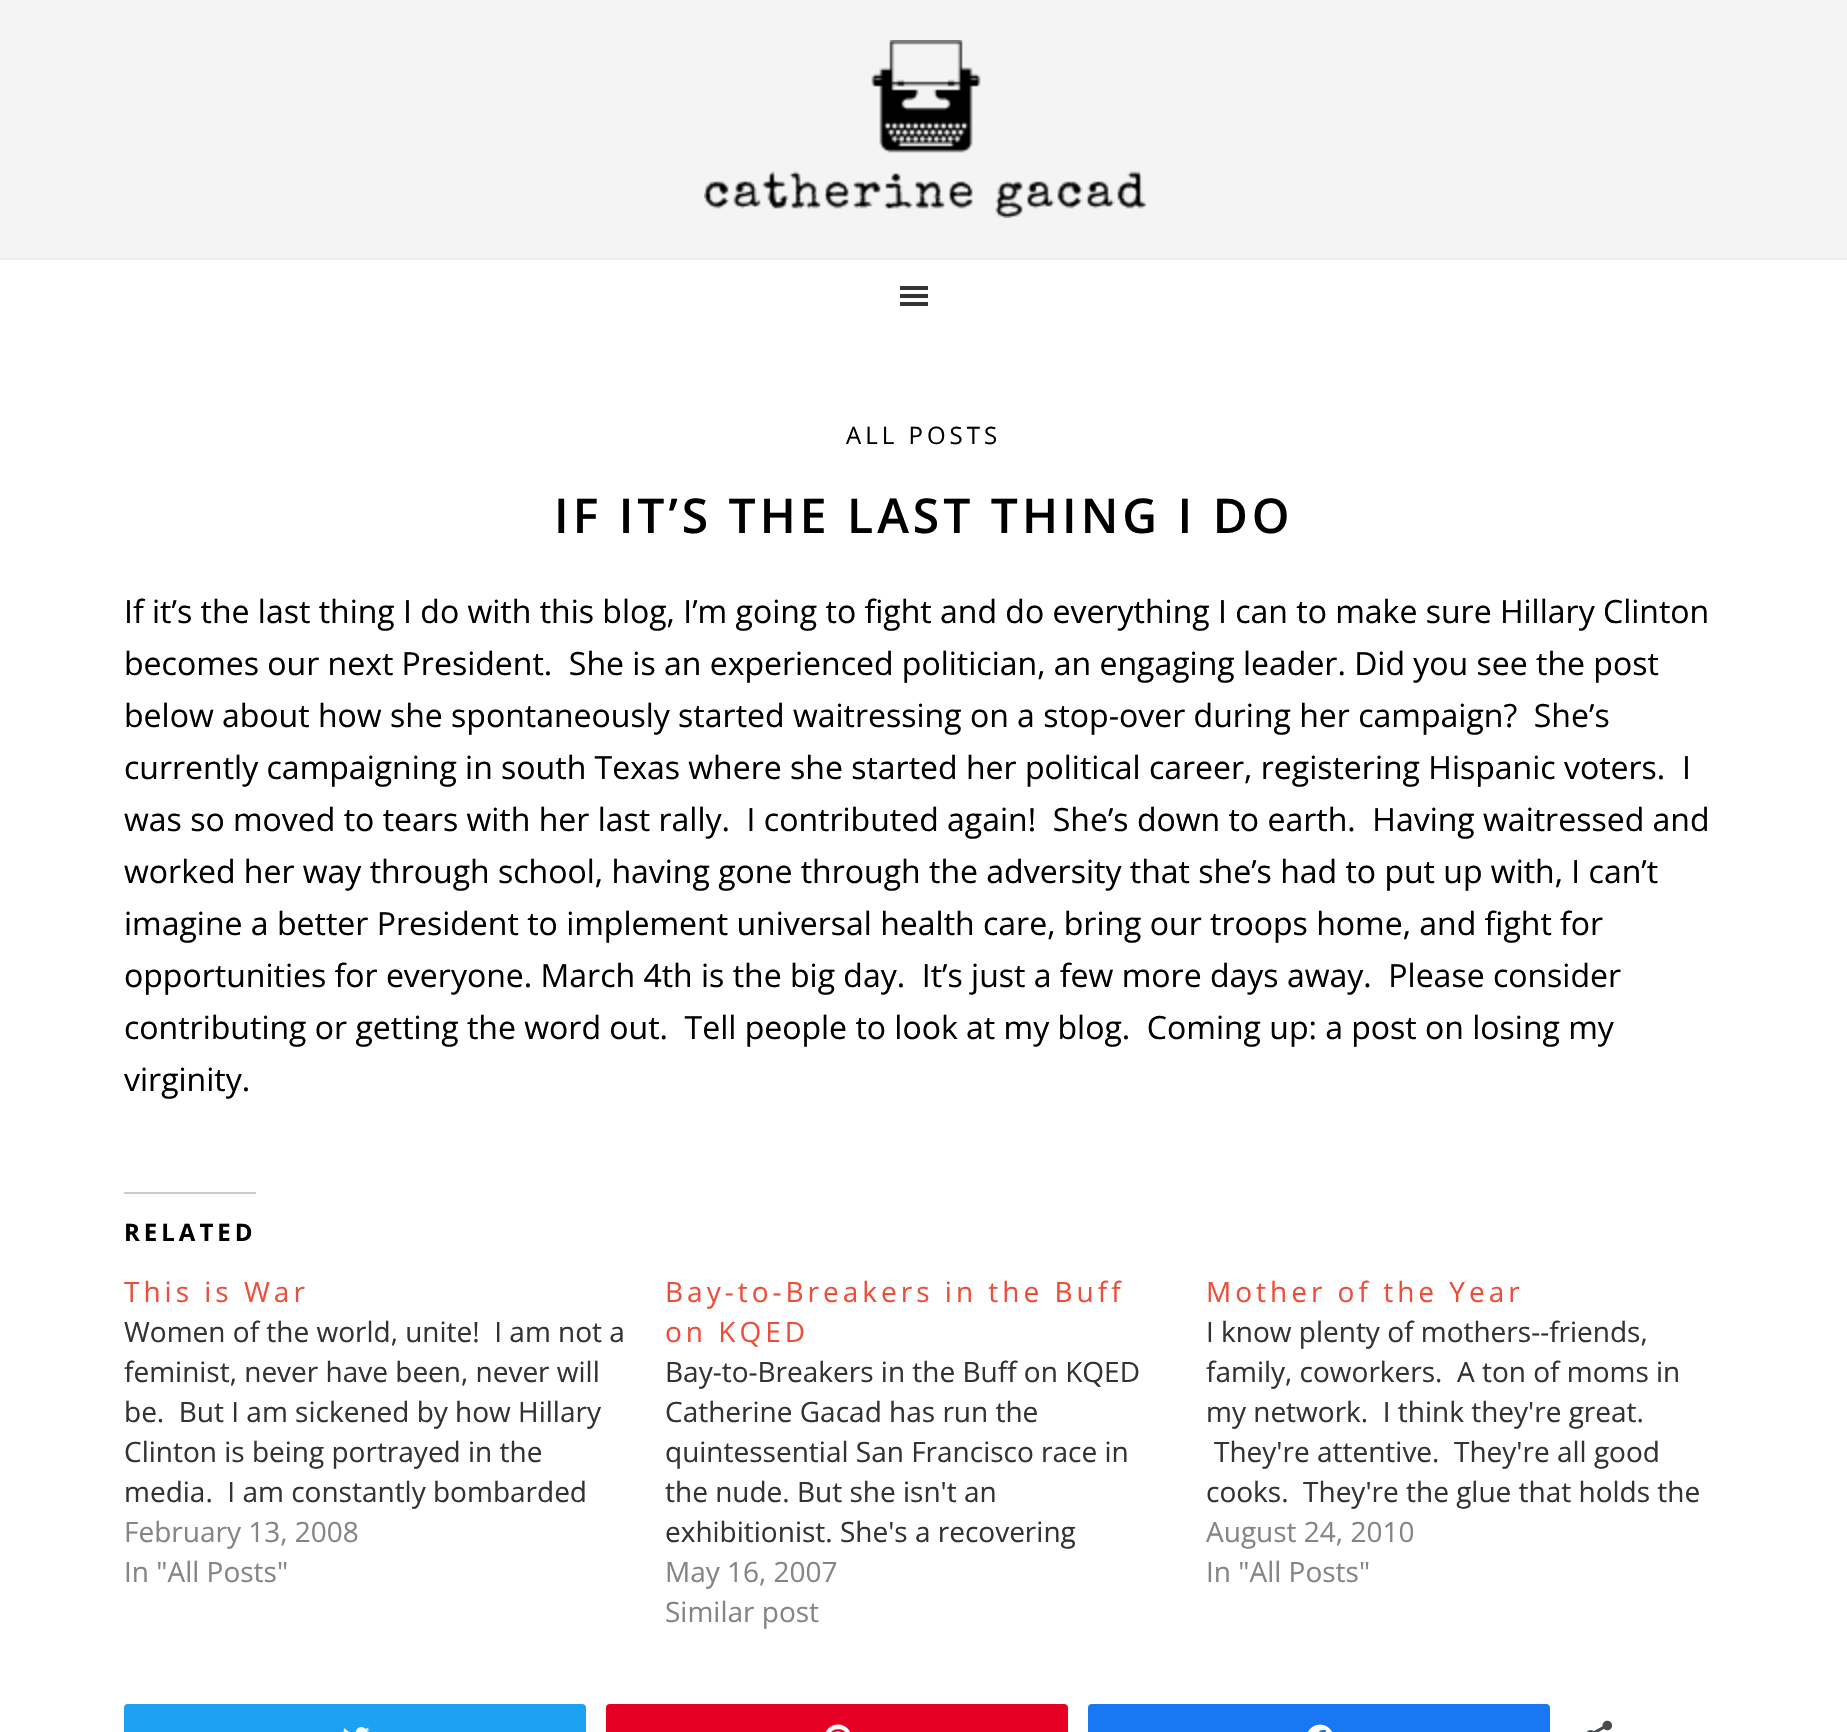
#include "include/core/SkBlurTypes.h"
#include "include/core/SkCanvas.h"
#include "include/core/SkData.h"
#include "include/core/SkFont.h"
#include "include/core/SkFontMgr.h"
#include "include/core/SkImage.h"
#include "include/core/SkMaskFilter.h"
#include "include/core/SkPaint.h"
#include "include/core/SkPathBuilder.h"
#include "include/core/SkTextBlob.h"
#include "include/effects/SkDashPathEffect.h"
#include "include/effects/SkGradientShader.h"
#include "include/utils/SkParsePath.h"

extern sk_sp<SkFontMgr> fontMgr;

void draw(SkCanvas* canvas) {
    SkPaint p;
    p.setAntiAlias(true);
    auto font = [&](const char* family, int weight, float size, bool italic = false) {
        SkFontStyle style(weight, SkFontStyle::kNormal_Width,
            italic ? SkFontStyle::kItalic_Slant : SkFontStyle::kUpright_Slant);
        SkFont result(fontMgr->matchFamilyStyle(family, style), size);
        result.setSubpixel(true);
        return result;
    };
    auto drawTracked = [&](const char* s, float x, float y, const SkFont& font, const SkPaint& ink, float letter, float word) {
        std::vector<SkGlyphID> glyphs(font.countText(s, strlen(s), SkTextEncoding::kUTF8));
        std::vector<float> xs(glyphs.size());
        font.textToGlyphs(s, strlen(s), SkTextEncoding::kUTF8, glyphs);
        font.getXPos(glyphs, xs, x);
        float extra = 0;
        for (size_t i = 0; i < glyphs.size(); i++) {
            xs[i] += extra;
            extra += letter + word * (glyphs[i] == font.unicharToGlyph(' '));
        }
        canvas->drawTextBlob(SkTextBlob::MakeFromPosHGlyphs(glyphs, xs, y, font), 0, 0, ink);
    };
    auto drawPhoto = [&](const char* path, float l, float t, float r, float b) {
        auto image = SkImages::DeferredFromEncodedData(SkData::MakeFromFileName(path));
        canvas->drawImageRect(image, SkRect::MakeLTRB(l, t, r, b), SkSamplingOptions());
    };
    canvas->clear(0xFFFFFFFF);
    p.setColor(0xFFF4F4F4);
    canvas->drawRect(SkRect::MakeLTRB(0, 0, 1847, 258), p);
    drawPhoto("media/1.png", 704, 40, 1146, 218);
    p.setColor(0xFFEEEEEE);
    canvas->drawRect(SkRect::MakeLTRB(0, 258, 1847, 260), p);
    drawPhoto("media/2.png", 900, 286, 928, 306);
    auto font1 = font("Open Sans", 400, 24);
    p.setColor(0xFF000000);
    drawTracked("ALL POSTS", 846, 444, font1, p, 4, 0);
    auto font2 = font("Open Sans", 600, 48);
    drawTracked("IF IT’S THE LAST THING I DO", 554, 533, font2, p, 4, 0);
    auto font3 = font("Open Sans", 400, 32);
    {
        const struct { const char* s; float x, y; } items[] = {
            {"If it’s the last thing I do with this blog, I’m going to fight and do everything I can to make sure Hillary Clinton", 124, 623},
            {"becomes our next President.  She is an experienced politician, an engaging leader. Did you see the post", 124, 675},
            {"below about how she spontaneously started waitressing on a stop-over during her campaign?  She’s", 124, 727},
            {"currently campaigning in south Texas where she started her political career, registering Hispanic voters.  I", 124, 779},
            {"was so moved to tears with her last rally.  I contributed again!  She’s down to earth.  Having waitressed and", 124, 831},
            {"worked her way through school, having gone through the adversity that she’s had to put up with, I can’t", 124, 883},
            {"imagine a better President to implement universal health care, bring our troops home, and fight for", 124, 935},
            {"opportunities for everyone. March 4th is the big day.  It’s just a few more days away.  Please consider", 124, 987},
            {"contributing or getting the word out.  Tell people to look at my blog.  Coming up: a post on losing my", 124, 1039},
            {"virginity.", 124, 1091},
        };
        for (auto [s, x, y] : items) {
            canvas->drawString(s, x, y, font3, p);
        }
    }
    p.setColor(0xFFCCCCCC);
    canvas->drawRect(SkRect::MakeLTRB(124, 1192, 256, 1194), p);
    auto font4 = font("Open Sans", 700, 24);
    p.setColor(0xFF000000);
    drawTracked("RELATED", 124, 1241, font4, p, 4, 0);
    auto font5 = font("Open Sans", 400, 28);
    p.setColor(0xFFED4E39);
    drawTracked("This is War", 124, 1302, font5, p, 4, 0);
    p.setColor(0xFF333333);
    {
        const struct { const char* s; float x, y; } items[] = {
            {"Women of the world, unite!  I am not a", 124, 1342},
            {"feminist, never have been, never will", 124, 1382},
            {"be.  But I am sickened by how Hillary", 124, 1422},
            {"Clinton is being portrayed in the", 124, 1462},
            {"media.  I am constantly bombarded", 124, 1502},
        };
        for (auto [s, x, y] : items) {
            canvas->drawString(s, x, y, font5, p);
        }
    }
    p.setColor(0xFF858585);
    canvas->drawString("February 13, 2008", 124, 1542, font5, p);
    canvas->drawString("In \"All Posts\"", 124, 1582, font5, p);
    p.setColor(0xFFED4E39);
    drawTracked("Bay-to-Breakers in the Buff", 665, 1302, font5, p, 4, 0);
    drawTracked("on KQED", 665, 1342, font5, p, 4, 0);
    p.setColor(0xFF333333);
    {
        const struct { const char* s; float x, y; } items[] = {
            {"Bay-to-Breakers in the Buff on KQED", 665, 1382},
            {"Catherine Gacad has run the", 665, 1422},
            {"quintessential San Francisco race in", 665, 1462},
            {"the nude. But she isn't an", 665, 1502},
            {"exhibitionist. She's a recovering", 665, 1542},
        };
        for (auto [s, x, y] : items) {
            canvas->drawString(s, x, y, font5, p);
        }
    }
    p.setColor(0xFF858585);
    canvas->drawString("May 16, 2007", 665, 1582, font5, p);
    canvas->drawString("Similar post", 665, 1622, font5, p);
    p.setColor(0xFFED4E39);
    drawTracked("Mother of the Year", 1206, 1302, font5, p, 4, 0);
    p.setColor(0xFF333333);
    {
        const struct { const char* s; float x, y; } items[] = {
            {"I know plenty of mothers--friends,", 1206, 1342},
            {"family, coworkers.  A ton of moms in", 1206, 1382},
            {"my network.  I think they're great.", 1206, 1422},
            {"They're attentive.  They're all good", 1214, 1462},
            {"cooks.  They're the glue that holds the", 1206, 1502},
        };
        for (auto [s, x, y] : items) {
            canvas->drawString(s, x, y, font5, p);
        }
    }
    p.setColor(0xFF858585);
    canvas->drawString("August 24, 2010", 1206, 1542, font5, p);
    canvas->drawString("In \"All Posts\"", 1206, 1582, font5, p);
    p.setColor(0xFF1DA1F2);
    canvas->drawRoundRect(SkRect::MakeLTRB(125, 1705, 585, 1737), 3, 3, p);
    p.setStyle(SkPaint::kStroke_Style);
    p.setStrokeWidth(2);
    canvas->drawRoundRect(SkRect::MakeLTRB(125, 1705, 585, 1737), 3, 3, p);
    drawPhoto("media/3.png", 343, 1727, 370, 1732);
    p.setStyle(SkPaint::kFill_Style);
    p.setColor(0xFFE60023);
    canvas->drawRoundRect(SkRect::MakeLTRB(607, 1705, 1067, 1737), 3, 3, p);
    p.setStyle(SkPaint::kStroke_Style);
    canvas->drawRoundRect(SkRect::MakeLTRB(607, 1705, 1067, 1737), 3, 3, p);
    drawPhoto("media/4.png", 826, 1724, 850, 1732);
    p.setStyle(SkPaint::kFill_Style);
    p.setColor(0xFF1877F2);
    canvas->drawRoundRect(SkRect::MakeLTRB(1089, 1705, 1549, 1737), 3, 3, p);
    p.setStyle(SkPaint::kStroke_Style);
    canvas->drawRoundRect(SkRect::MakeLTRB(1089, 1705, 1549, 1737), 3, 3, p);
    drawPhoto("media/5.png", 1308, 1724, 1332, 1732);
    drawPhoto("media/6.png", 1586, 1720, 1613, 1732);
}
